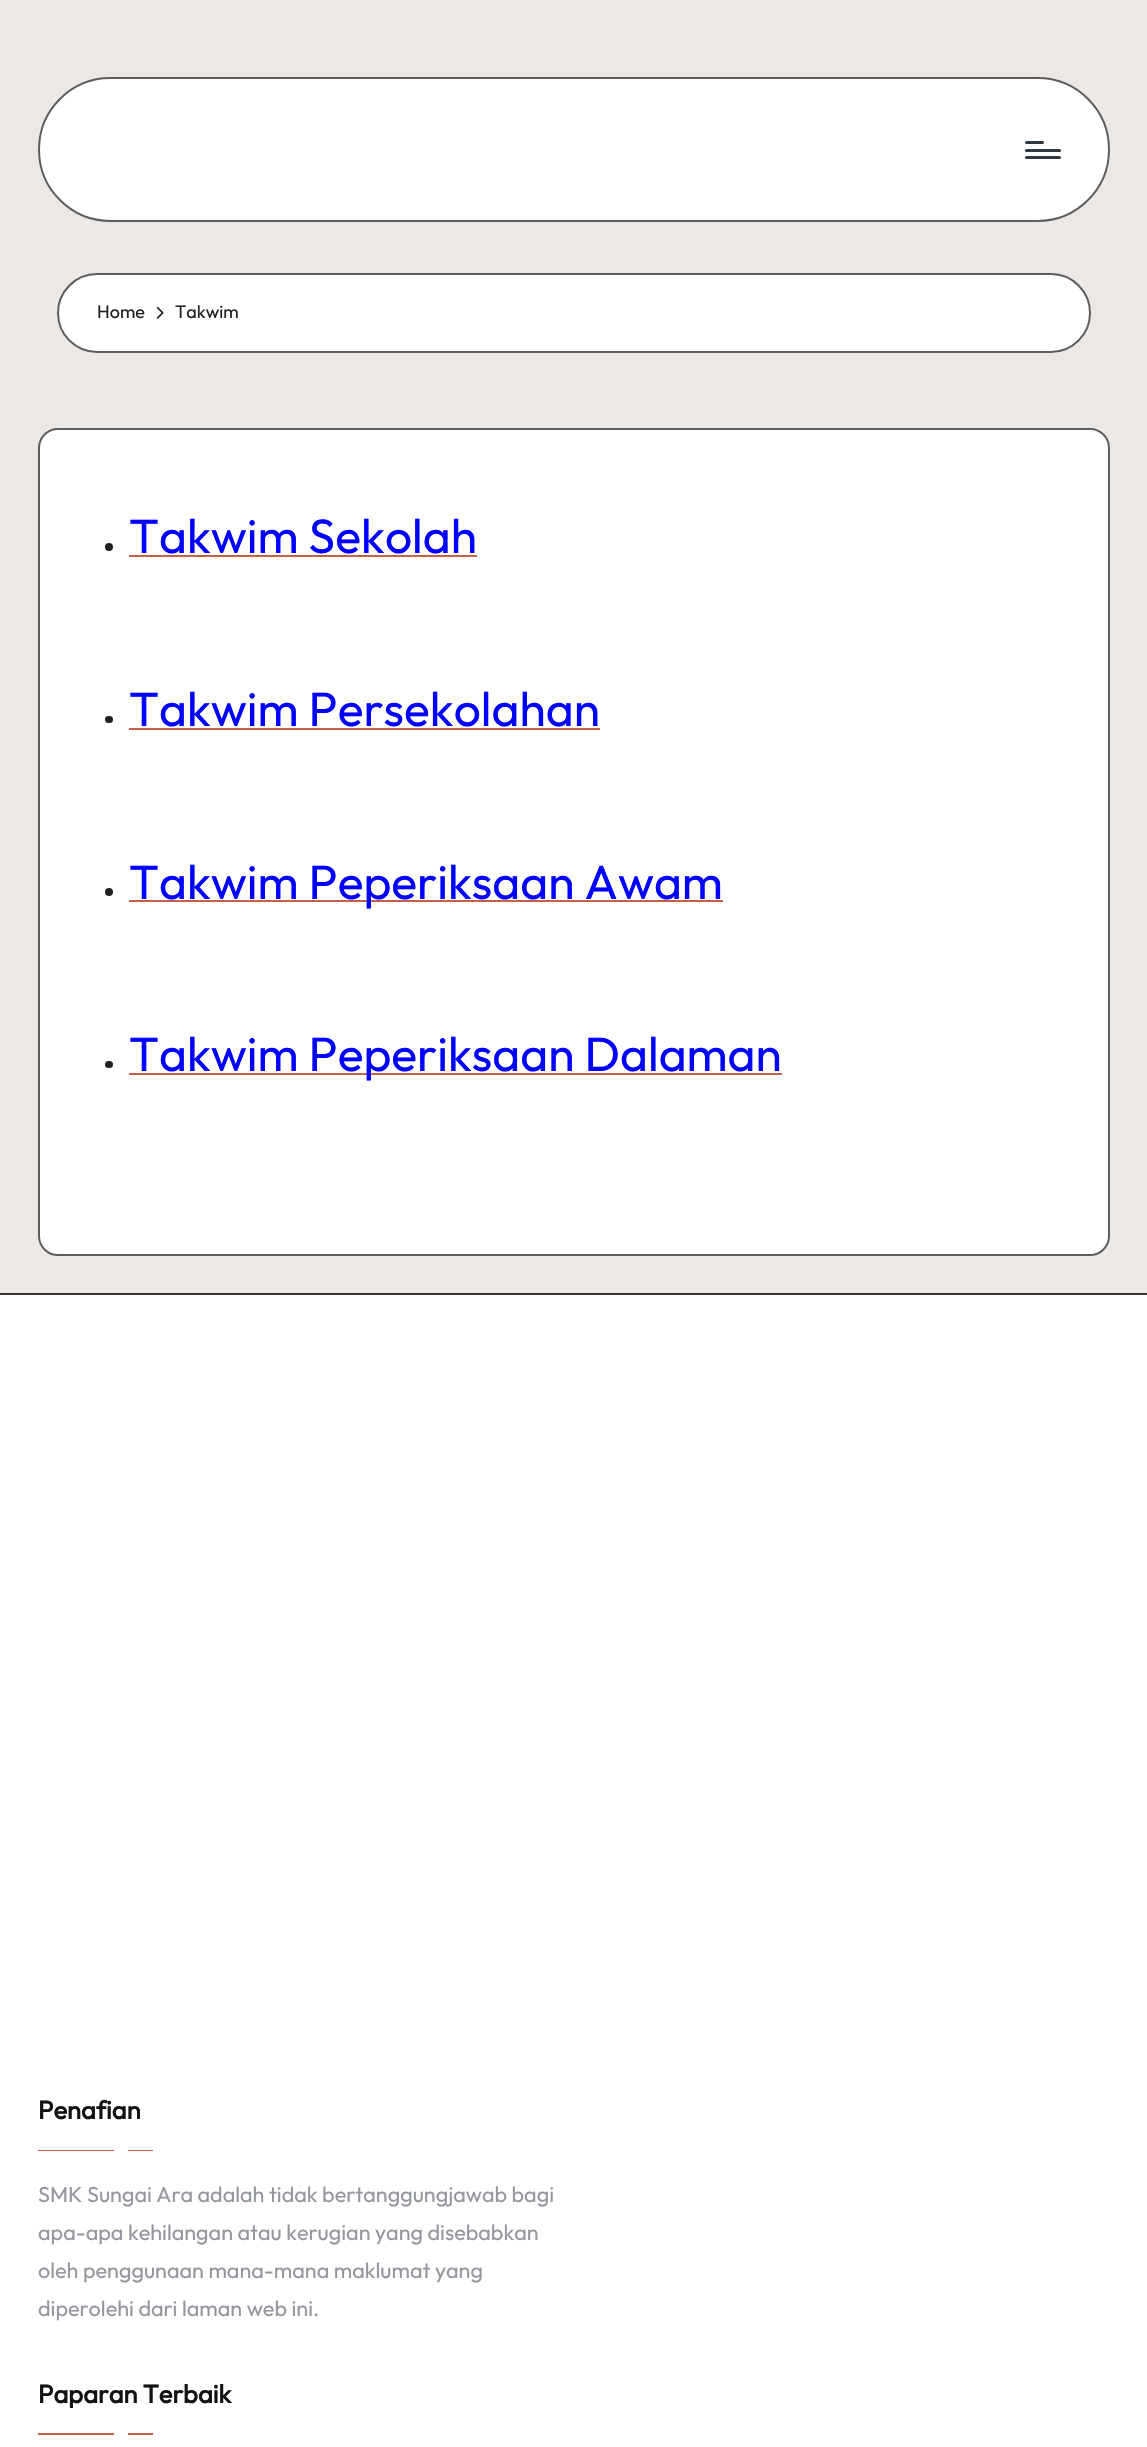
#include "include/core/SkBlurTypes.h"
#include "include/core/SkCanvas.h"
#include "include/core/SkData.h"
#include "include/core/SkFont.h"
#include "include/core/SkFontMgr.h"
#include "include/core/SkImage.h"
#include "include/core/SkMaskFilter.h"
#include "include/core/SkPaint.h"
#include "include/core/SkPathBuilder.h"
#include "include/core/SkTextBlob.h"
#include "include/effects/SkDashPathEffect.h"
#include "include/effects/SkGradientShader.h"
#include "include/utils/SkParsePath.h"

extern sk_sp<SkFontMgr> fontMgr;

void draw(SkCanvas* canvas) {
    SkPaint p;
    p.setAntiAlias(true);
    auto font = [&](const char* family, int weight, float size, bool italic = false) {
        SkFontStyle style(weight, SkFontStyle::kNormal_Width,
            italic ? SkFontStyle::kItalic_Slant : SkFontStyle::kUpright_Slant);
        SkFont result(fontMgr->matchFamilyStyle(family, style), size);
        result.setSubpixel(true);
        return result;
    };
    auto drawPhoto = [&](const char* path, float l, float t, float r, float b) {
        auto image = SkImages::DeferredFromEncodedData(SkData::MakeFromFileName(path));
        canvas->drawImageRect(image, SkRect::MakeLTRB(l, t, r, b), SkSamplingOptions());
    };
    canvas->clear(0xFFEBE8E6);
    p.setColor(0xFFFFFFFF);
    canvas->drawRoundRect(SkRect::MakeLTRB(38, 77, 1110, 222), 72.5f, 72.5f, p);
    p.setStyle(SkPaint::kStroke_Style);
    p.setStrokeWidth(2);
    p.setColor(0xBF272727);
    canvas->drawRoundRect(SkRect::MakeLTRB(39, 78, 1109, 221), 71.5f, 71.5f, p);
    p.setStyle(SkPaint::kFill_Style);
    p.setColor(0xFF30373E);
    canvas->drawRoundRect(SkRect::MakeLTRB(1025, 149, 1061, 152), 1.5f, 1.5f, p);
    canvas->drawRoundRect(SkRect::MakeLTRB(1025, 141, 1044, 144), 1.5f, 1.5f, p);
    canvas->drawRoundRect(SkRect::MakeLTRB(1025, 156, 1061, 159), 1.5f, 1.5f, p);
    p.setColor(0xFFFFFFFF);
    canvas->drawRoundRect(SkRect::MakeLTRB(57, 273, 1091, 353), 40, 40, p);
    p.setStyle(SkPaint::kStroke_Style);
    p.setColor(0xBF272727);
    canvas->drawRoundRect(SkRect::MakeLTRB(58, 274, 1090, 352), 39, 39, p);
    auto font1 = font("Outfit", 100, 18);
    p.setStyle(SkPaint::kFill_Style);
    p.setColor(0xFF212121);
    canvas->drawString("Home", 97, 318, font1, p);
    drawPhoto("media/1.png", 156, 306, 164, 319);
    canvas->drawString("Takwim", 175, 318, font1, p);
    p.setColor(0xFFFFFFFF);
    canvas->drawRoundRect(SkRect::MakeLTRB(38, 428, 1110, 1256), 20, 20, p);
    p.setStyle(SkPaint::kStroke_Style);
    p.setColor(0xBF272727);
    canvas->drawRoundRect(SkRect::MakeLTRB(39, 429, 1109, 1255), 19, 19, p);
    p.setStyle(SkPaint::kFill_Style);
    p.setColor(0xFF212121);
    canvas->drawCircle(109, 547, 4, p);
    auto font2 = font("Outfit", 100, 48);
    p.setColor(0xFF0000FF);
    canvas->drawString("Takwim Sekolah", 129, 553, font2, p);
    p.setColor(0xFFC26148);
    canvas->drawRect(SkRect::MakeLTRB(129, 555, 477, 557), p);
    p.setColor(0xFF212121);
    canvas->drawRoundRect(SkRect::MakeLTRB(105, 716, 113, 723), 3.5f, 3.5f, p);
    p.setColor(0xFF0000FF);
    canvas->drawString("Takwim Persekolahan", 129, 726, font2, p);
    p.setColor(0xFFC26148);
    canvas->drawRect(SkRect::MakeLTRB(129, 728, 600, 730), p);
    p.setColor(0xFF212121);
    canvas->drawCircle(109, 892, 4, p);
    p.setColor(0xFFC26148);
    canvas->drawRect(SkRect::MakeLTRB(129, 900, 723, 902), p);
    p.setColor(0xFF0000FF);
    canvas->drawString("Takwim Peperiksaan Awam", 129, 899, font2, p);
    p.setColor(0xFF212121);
    canvas->drawRoundRect(SkRect::MakeLTRB(105, 1061, 113, 1068), 3.5f, 3.5f, p);
    p.setColor(0xFFC26148);
    canvas->drawRect(SkRect::MakeLTRB(129, 1073, 782, 1075), p);
    p.setColor(0xFF0000FF);
    canvas->drawString("Takwim Peperiksaan Dalaman", 129, 1071, font2, p);
    p.setColor(0xFFFFFFFF);
    canvas->drawRect(SkRect::MakeLTRB(0, 1295, 1147, 2447), p);
    p.setColor(0xFF333333);
    canvas->drawRect(SkRect::MakeLTRB(0, 1293, 1147, 1295), p);
    auto font3 = font("Outfit", 700, 25.5f);
    p.setColor(0xFF131315);
    canvas->drawString("Penafian", 38, 2119, font3, p);
    p.setColor(0xFFC26148);
    canvas->drawRect(SkRect::MakeLTRB(38, 2150, 114, 2151), p);
    canvas->drawRect(SkRect::MakeLTRB(128, 2150, 153, 2151), p);
    auto font4 = font("Outfit", 100, 21.6f);
    p.setColor(0xFF94979E);
    {
        const struct { const char* s; float x, y; } items[] = {
            {"SMK Sungai Ara adalah tidak bertanggungjawab bagi", 38, 2202},
            {"apa-apa kehilangan atau kerugian yang disebabkan", 38, 2240},
            {"oleh penggunaan mana-mana maklumat yang", 38, 2278},
            {"diperolehi dari laman web ini.", 38, 2316},
        };
        for (auto [s, x, y] : items) {
            canvas->drawString(s, x, y, font4, p);
        }
    }
    p.setColor(0xFF131315);
    canvas->drawString("Paparan Terbaik", 38, 2403, font3, p);
    p.setColor(0xFFC26148);
    canvas->drawRect(SkRect::MakeLTRB(38, 2433, 114, 2435), p);
    canvas->drawRect(SkRect::MakeLTRB(128, 2433, 153, 2435), p);
}
